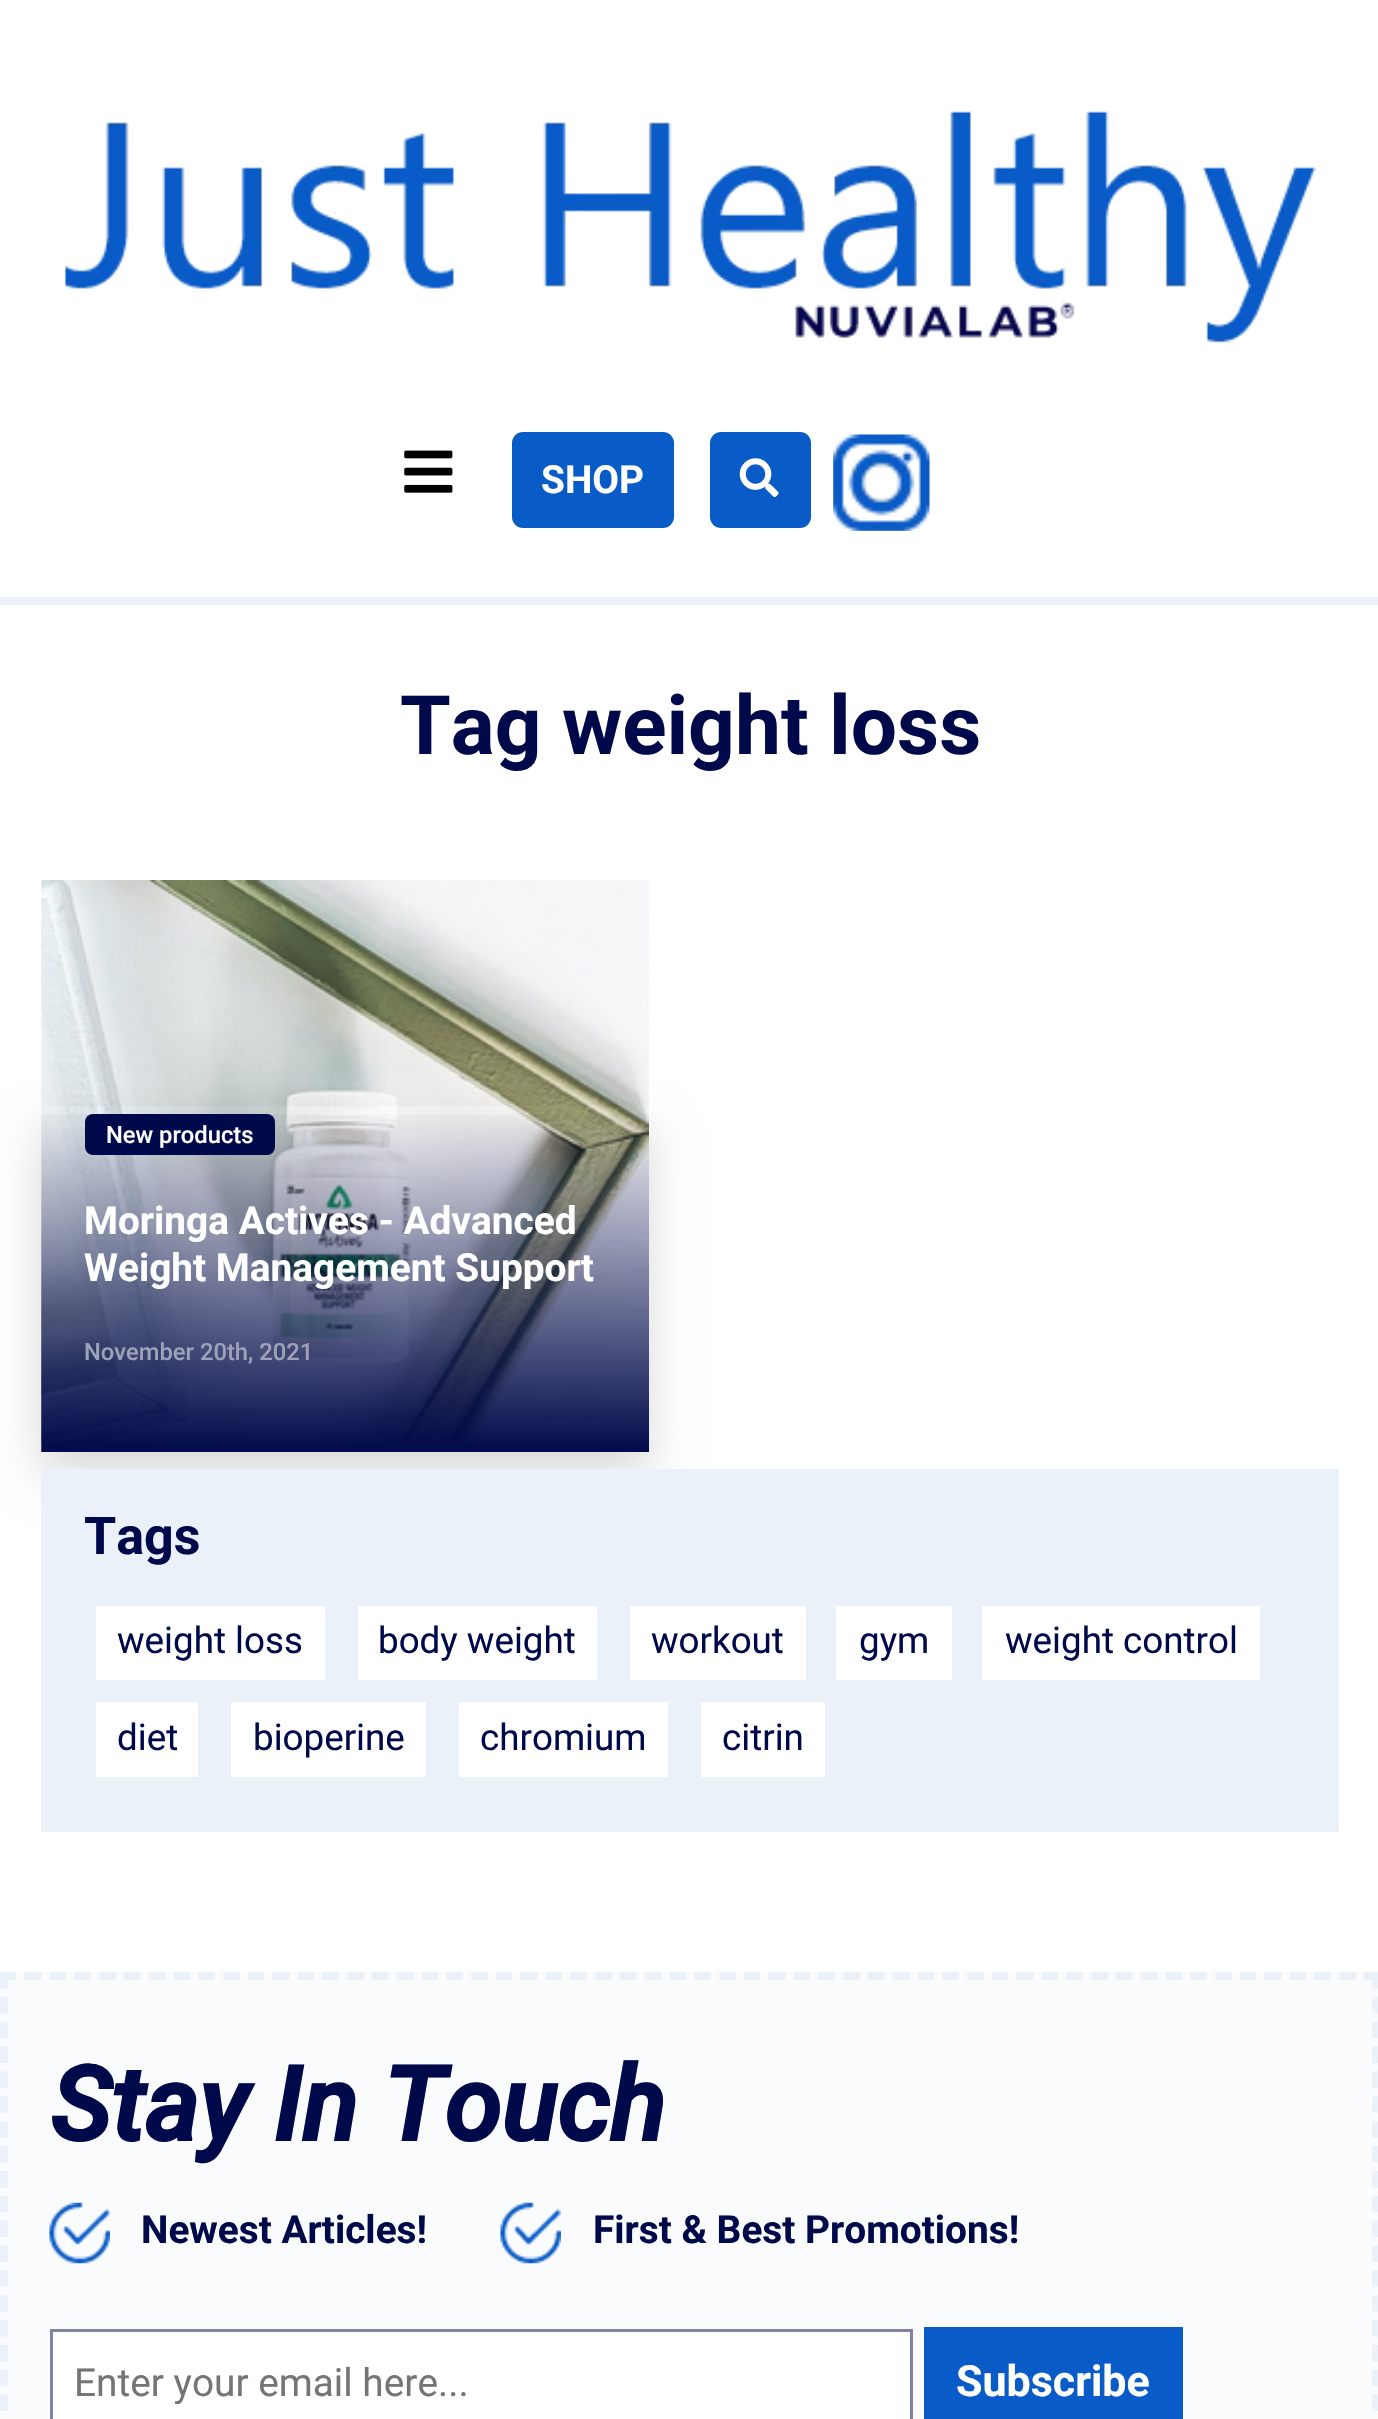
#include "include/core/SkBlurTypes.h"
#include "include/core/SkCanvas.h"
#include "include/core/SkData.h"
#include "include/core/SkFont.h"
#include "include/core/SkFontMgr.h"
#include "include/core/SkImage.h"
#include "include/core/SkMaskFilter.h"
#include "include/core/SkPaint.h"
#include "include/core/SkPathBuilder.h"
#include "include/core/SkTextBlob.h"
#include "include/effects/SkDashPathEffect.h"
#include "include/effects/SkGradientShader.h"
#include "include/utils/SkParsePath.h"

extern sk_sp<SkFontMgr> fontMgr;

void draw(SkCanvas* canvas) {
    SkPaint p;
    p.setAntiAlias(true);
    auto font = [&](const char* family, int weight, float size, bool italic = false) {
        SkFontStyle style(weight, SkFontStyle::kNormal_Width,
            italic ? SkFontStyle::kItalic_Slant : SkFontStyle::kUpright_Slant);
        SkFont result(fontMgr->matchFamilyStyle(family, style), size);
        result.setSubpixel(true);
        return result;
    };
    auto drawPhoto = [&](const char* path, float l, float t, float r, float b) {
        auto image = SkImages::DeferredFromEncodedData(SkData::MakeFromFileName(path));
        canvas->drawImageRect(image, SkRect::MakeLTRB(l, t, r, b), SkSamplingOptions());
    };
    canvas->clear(0xFFFFFFFF);
    drawPhoto("media/1.png", 64, 111, 1316, 343);
    p.setColor(0xFFEBF1F8);
    canvas->drawRect(SkRect::MakeLTRB(0, 597, 1378, 605), p);
    drawPhoto("media/2.png", 404, 450, 453, 493);
    p.setColor(0xFF095CC8);
    canvas->drawRoundRect(SkRect::MakeLTRB(512, 432, 674, 528), 11, 11, p);
    auto font1 = font("Roboto", 700, 38.8f);
    p.setColor(0xFFFFFFFF);
    canvas->drawString("SHOP", 541, 493, font1, p);
    p.setColor(0xFF095CC8);
    canvas->drawRoundRect(SkRect::MakeLTRB(710, 432, 811, 528), 11, 11, p);
    drawPhoto("media/3.png", 739, 458, 779, 498);
    drawPhoto("media/4.png", 833, 434, 930, 531);
    auto font2 = font("Roboto", 700, 82);
    p.setColor(0xFF000A4B);
    canvas->drawString("Tag weight loss", 400, 754, font2, p);
    drawPhoto("media/5.png", 41, 880, 649, 1444);
    canvas->save();
    canvas->clipPath(SkPathBuilder(SkPathFillType::kEvenOdd).moveTo(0, 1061).lineTo(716, 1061).lineTo(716, 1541).lineTo(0, 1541).close().moveTo(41, 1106).lineTo(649, 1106).lineTo(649, 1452).lineTo(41, 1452).close().detach(), true);
    p.setColor(0x26000000);
    p.setMaskFilter(SkMaskFilter::MakeBlur(kNormal_SkBlurStyle, 22));
    canvas->drawRect(SkRect::MakeLTRB(41, 1128, 649, 1474), p);
    p.setMaskFilter(nullptr);
    canvas->restore();
    drawPhoto("media/6.png", 41, 1114, 649, 1452);
    p.setColor(0xFF000A4B);
    canvas->drawRoundRect(SkRect::MakeLTRB(85, 1114, 275, 1155), 8, 8, p);
    auto font3 = font("Roboto", 500, 23.75f);
    p.setColor(0xFFFFFFFF);
    canvas->drawString("New products", 106, 1143, font3, p);
    canvas->drawString("Moringa Actives - Advanced", 84, 1234, font1, p);
    canvas->drawString("Weight Management Support", 84, 1281, font1, p);
    p.setColor(0xFF9EA2B8);
    canvas->drawString("November 20th, 2021", 84, 1360, font3, p);
    p.setColor(0xFFEBF1F8);
    canvas->drawRect(SkRect::MakeLTRB(41, 1469, 1339, 1832), p);
    auto font4 = font("Roboto", 700, 52);
    p.setColor(0xFF000A4B);
    canvas->drawString("Tags", 84, 1554, font4, p);
    p.setColor(0xFFFFFFFF);
    canvas->drawRect(SkRect::MakeLTRB(96, 1606, 325, 1680), p);
    auto font5 = font("Roboto", 400, 36.75f);
    p.setColor(0xFF000A4B);
    canvas->drawString("weight loss", 117, 1653, font5, p);
    p.setColor(0xFFFFFFFF);
    canvas->drawRect(SkRect::MakeLTRB(358, 1606, 597, 1680), p);
    p.setColor(0xFF000A4B);
    canvas->drawString("body weight", 378, 1653, font5, p);
    p.setColor(0xFFFFFFFF);
    canvas->drawRect(SkRect::MakeLTRB(630, 1606, 806, 1680), p);
    p.setColor(0xFF000A4B);
    canvas->drawString("workout", 651, 1653, font5, p);
    p.setColor(0xFFFFFFFF);
    canvas->drawRect(SkRect::MakeLTRB(836, 1606, 952, 1680), p);
    p.setColor(0xFF000A4B);
    canvas->drawString("gym", 859, 1653, font5, p);
    p.setColor(0xFFFFFFFF);
    canvas->drawRect(SkRect::MakeLTRB(982, 1606, 1260, 1680), p);
    p.setColor(0xFF000A4B);
    canvas->drawString("weight control", 1005, 1653, font5, p);
    p.setColor(0xFFFFFFFF);
    canvas->drawRect(SkRect::MakeLTRB(96, 1702, 198, 1777), p);
    p.setColor(0xFF000A4B);
    canvas->drawString("diet", 117, 1750, font5, p);
    p.setColor(0xFFFFFFFF);
    canvas->drawRect(SkRect::MakeLTRB(231, 1702, 426, 1777), p);
    p.setColor(0xFF000A4B);
    canvas->drawString("bioperine", 253, 1750, font5, p);
    p.setColor(0xFFFFFFFF);
    canvas->drawRect(SkRect::MakeLTRB(459, 1702, 668, 1777), p);
    p.setColor(0xFF000A4B);
    canvas->drawString("chromium", 480, 1750, font5, p);
    p.setColor(0xFFFFFFFF);
    canvas->drawRect(SkRect::MakeLTRB(701, 1702, 825, 1777), p);
    p.setColor(0xFF000A4B);
    canvas->drawString("citrin", 722, 1750, font5, p);
    p.setColor(0xFFFAFBFD);
    canvas->drawRect(SkRect::MakeLTRB(0, 1972, 1378, 2419), p);
    p.setStyle(SkPaint::kStroke_Style);
    p.setStrokeWidth(8.2f);
    p.setColor(0xFFEBF1F8);
    p.setPathEffect(SkDashPathEffect::Make({{16.5f, 8.3f}}, 0));
    canvas->drawPath(SkPathBuilder().moveTo(0, 1976).lineTo(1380.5f, 1976).detach(), p);
    p.setPathEffect(nullptr);
    p.setPathEffect(SkDashPathEffect::Make({{16.5f, 8.36f}}, 0));
    canvas->drawPath(SkPathBuilder().moveTo(1376.5f, 1972).lineTo(1376.5f, 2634.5f).detach(), p);
    p.setPathEffect(nullptr);
    p.setPathEffect(SkDashPathEffect::Make({{16.5f, 8.36f}}, 0));
    canvas->drawPath(SkPathBuilder().moveTo(4, 1972).lineTo(4, 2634.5f).detach(), p);
    p.setPathEffect(nullptr);
    auto font6 = font("Roboto", 700, 103.5f, true);
    p.setStyle(SkPaint::kFill_Style);
    p.setColor(0xFF000A4B);
    canvas->drawString("Stay In Touch", 50, 2141, font6, p);
    drawPhoto("media/7.png", 49, 2202, 110, 2264);
    canvas->drawString("Newest Articles!", 141, 2243, font1, p);
    drawPhoto("media/7.png", 500, 2202, 561, 2264);
    canvas->drawString("First & Best Promotions!", 593, 2243, font1, p);
    p.setColor(0xFFFFFFFF);
    canvas->drawRect(SkRect::MakeLTRB(51.5f, 2330.5f, 911.5f, 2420.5f), p);
    p.setStyle(SkPaint::kStroke_Style);
    p.setStrokeWidth(3);
    p.setColor(0xFF7F84A5);
    canvas->drawRect(SkRect::MakeLTRB(51.5f, 2330.5f, 911.5f, 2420.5f), p);
    canvas->save();
    canvas->clipRect(SkRect::MakeLTRB(74, 2360, 888, 2404));
    auto font7 = font("Roboto", 400, 38.8f);
    p.setStyle(SkPaint::kFill_Style);
    p.setColor(0xFF757575);
    canvas->drawString("Enter your email here...", 74, 2396, font7, p);
    canvas->restore();
    p.setColor(0xFF095CC8);
    canvas->drawRect(SkRect::MakeLTRB(924, 2327, 1183, 2419), p);
    auto font8 = font("Roboto", 700, 43);
    p.setColor(0xFFFFFFFF);
    canvas->drawString("Subscribe", 956, 2396, font8, p);
}
